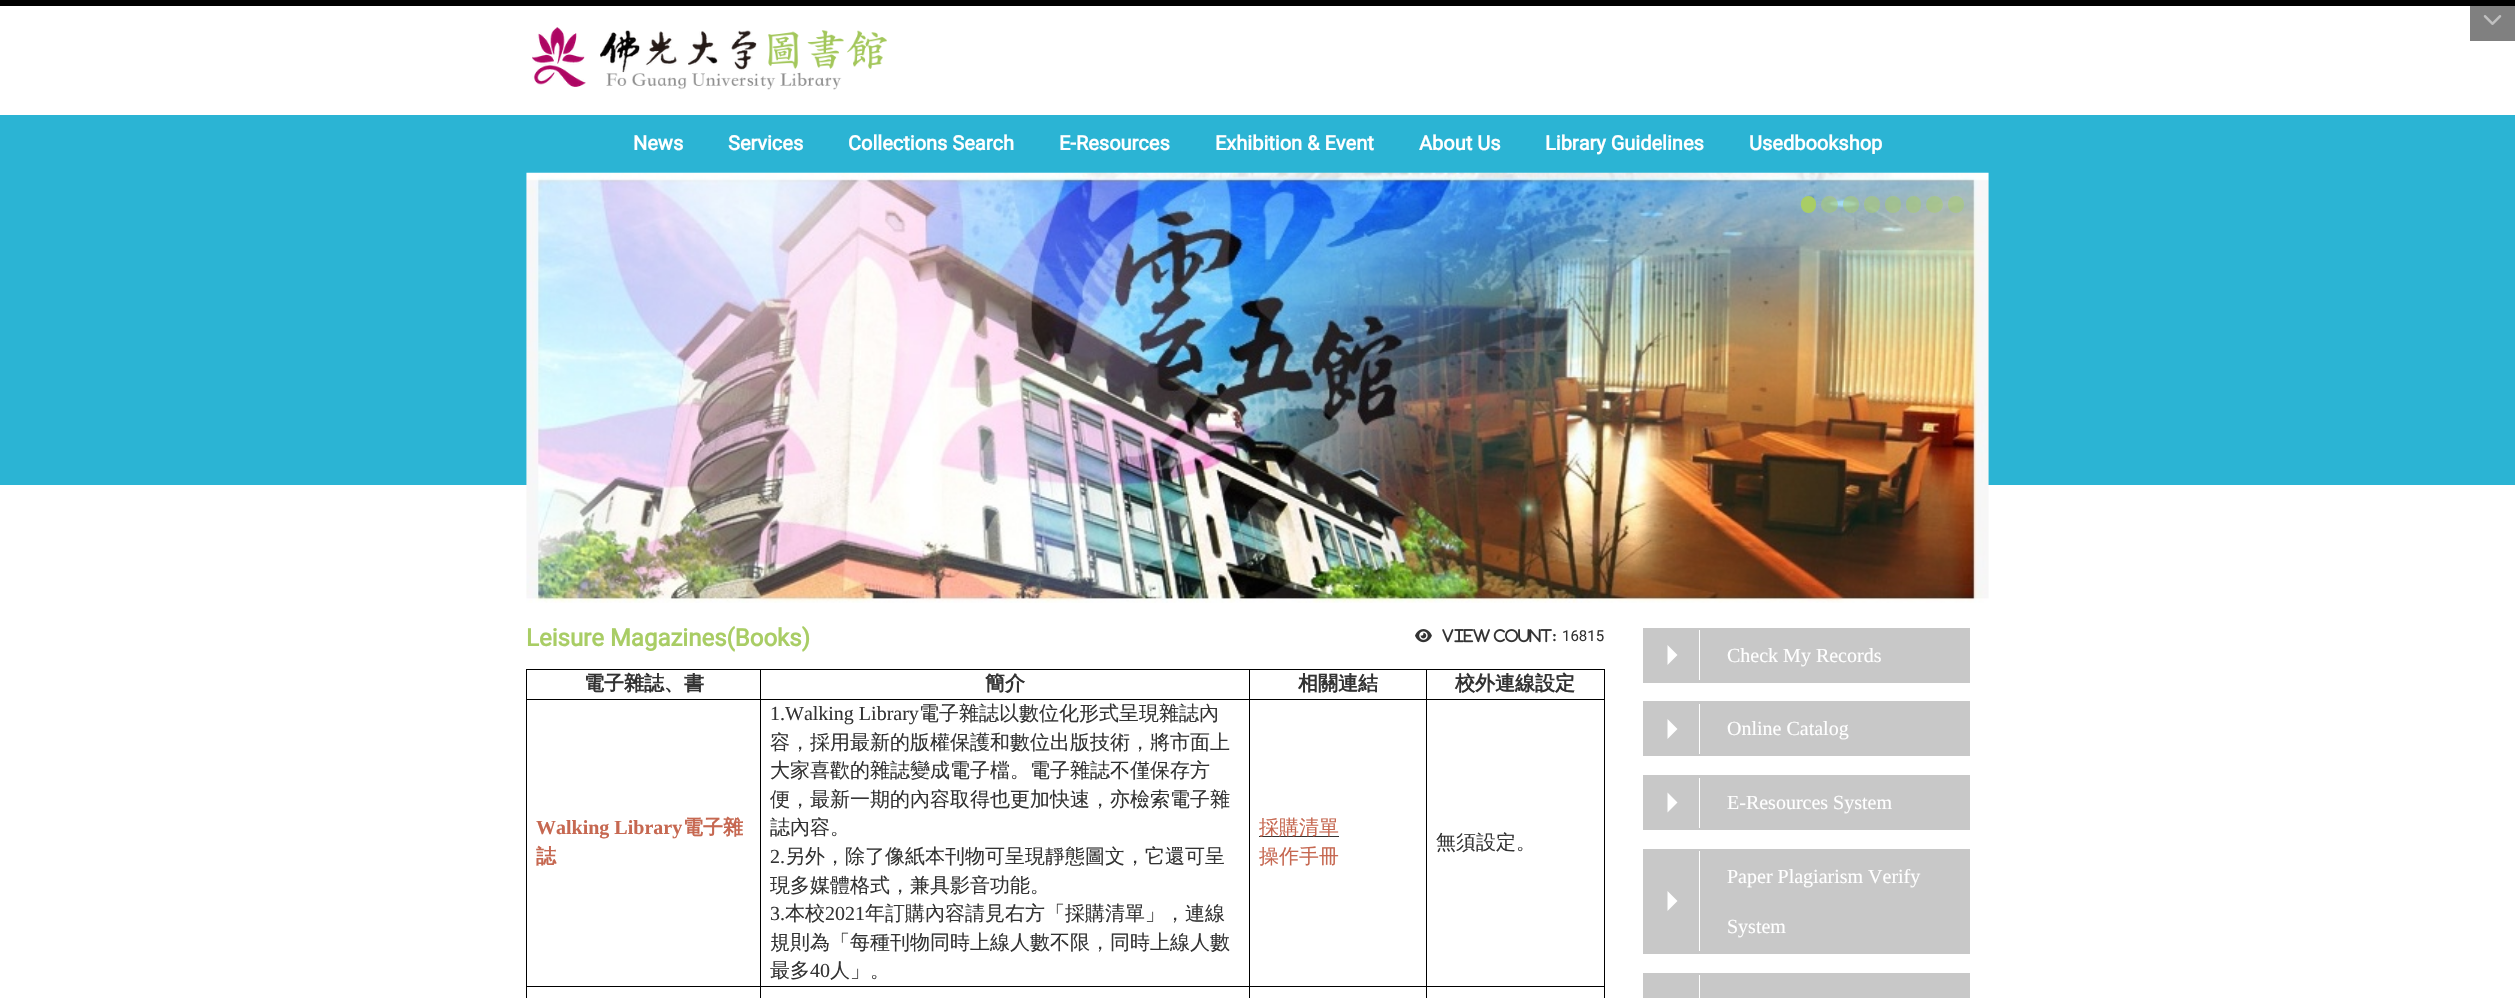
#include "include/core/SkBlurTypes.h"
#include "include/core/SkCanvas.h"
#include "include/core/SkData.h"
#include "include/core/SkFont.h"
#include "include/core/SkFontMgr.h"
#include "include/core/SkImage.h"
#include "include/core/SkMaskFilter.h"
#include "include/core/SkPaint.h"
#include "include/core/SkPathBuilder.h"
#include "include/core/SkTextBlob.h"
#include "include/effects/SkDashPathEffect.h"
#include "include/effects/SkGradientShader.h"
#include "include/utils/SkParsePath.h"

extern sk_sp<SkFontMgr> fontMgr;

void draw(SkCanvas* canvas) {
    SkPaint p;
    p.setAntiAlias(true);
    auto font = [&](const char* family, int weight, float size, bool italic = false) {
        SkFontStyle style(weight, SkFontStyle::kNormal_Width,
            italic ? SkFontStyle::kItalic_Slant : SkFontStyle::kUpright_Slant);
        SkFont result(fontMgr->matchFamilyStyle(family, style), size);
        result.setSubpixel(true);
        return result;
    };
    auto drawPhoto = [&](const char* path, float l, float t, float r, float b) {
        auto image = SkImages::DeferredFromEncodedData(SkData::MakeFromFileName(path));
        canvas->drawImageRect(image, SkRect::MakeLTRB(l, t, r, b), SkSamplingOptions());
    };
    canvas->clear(0xFFFFFFFF);
    p.setColor(0xFF808080);
    canvas->drawRect(SkRect::MakeLTRB(2470, 6, 2515, 41), p);
    p.setColor(0xFF000000);
    canvas->drawRect(SkRect::MakeLTRB(0, 0, 2515, 6), p);
    drawPhoto("media/1.png", 2483, 15, 2502, 25);
    drawPhoto("media/2.png", 532, 27, 887, 90);
    p.setColor(0xFF2BB4D4);
    canvas->drawRect(SkRect::MakeLTRB(0, 115, 2515, 485), p);
    auto font1 = font("Roboto", 700, 20);
    p.setColor(0xFFFFFFFF);
    {
        const struct { const char* s; float x, y; } items[] = {
            {"News", 633, 150},
            {"Services", 728, 150},
            {"Collections Search", 848, 150},
            {"E-Resources", 1059, 150},
            {"Exhibition & Event", 1215, 150},
            {"About Us", 1419, 150},
            {"Library Guidelines", 1545, 150},
            {"Usedbookshop", 1749, 150},
        };
        for (auto [s, x, y] : items) {
            canvas->drawString(s, x, y, font1, p);
        }
    }
    drawPhoto("media/3.png", 526, 172, 1989, 603);
    p.setColor(0xFFA9CD65);
    canvas->drawRoundRect(SkRect::MakeLTRB(1801, 196, 1816, 213), 7.5f, 7.5f, p);
    p.setColor(0x80A9CD65);
    canvas->drawCircle(1829.5f, 204.5f, 8.5f, p);
    canvas->drawRoundRect(SkRect::MakeLTRB(1843, 196, 1859, 213), 8, 8, p);
    canvas->drawRoundRect(SkRect::MakeLTRB(1864, 196, 1880, 213), 8, 8, p);
    canvas->drawRoundRect(SkRect::MakeLTRB(1885, 196, 1901, 213), 8, 8, p);
    canvas->drawRoundRect(SkRect::MakeLTRB(1906, 196, 1921, 213), 7.5f, 7.5f, p);
    canvas->drawCircle(1934.5f, 204.5f, 8.5f, p);
    canvas->drawRoundRect(SkRect::MakeLTRB(1948, 196, 1964, 213), 8, 8, p);
    auto font2 = font("Roboto", 700, 24);
    p.setColor(0xFFA9CD65);
    canvas->drawString("Leisure Magazines(Books)", 526, 646, font2, p);
    drawPhoto("media/4.png", 1415, 629, 1432, 643);
    drawPhoto("media/5.png", 1442, 629, 1490, 643);
    drawPhoto("media/6.png", 1493, 629, 1552, 643);
    auto font3 = font("Liberation Serif", 700, 15);
    p.setColor(0xFF333333);
    canvas->drawString(":", 1552, 641, font3, p);
    auto font4 = font("Roboto", 400, 15);
    canvas->drawString("16815", 1562, 641, font4, p);
    {
        const struct { float l, t, r, b; SkColor color; } items[] = {
            {526, 669, 1605, 670, 0xFF000000},
            {1604, 699, 1605, 998, 0xFF000000},
            {1604, 669, 1605, 700, 0xFF000000},
            {1426, 986, 1427, 998, 0xFF000000},
            {1426, 986, 1605, 987, 0xFF000000},
            {1426, 699, 1427, 988, 0xFF000000},
            {1426, 699, 1605, 700, 0xFF000000},
            {1426, 669, 1427, 700, 0xFF000000},
            {1249, 986, 1250, 998, 0xFF000000},
            {1249, 986, 1428, 987, 0xFF000000},
            {1249, 699, 1250, 988, 0xFF000000},
            {1249, 699, 1428, 700, 0xFF000000},
            {1249, 669, 1250, 700, 0xFF000000},
            {760, 986, 761, 998, 0xFF000000},
            {760, 986, 1250, 987, 0xFF000000},
            {760, 699, 761, 988, 0xFF000000},
            {760, 699, 1250, 700, 0xFF000000},
            {760, 669, 761, 700, 0xFF000000},
            {526, 986, 527, 998, 0xFF000000},
            {526, 986, 761, 987, 0xFF000000},
            {526, 699, 527, 988, 0xFF000000},
            {526, 699, 761, 700, 0xFF000000},
            {526, 669, 527, 700, 0xFF000000},
        };
        for (auto [l, t, r, b, color] : items) {
            p.setColor(color);
            canvas->drawRect(SkRect::MakeLTRB(l, t, r, b), p);
        }
    }
    auto font5 = font("WenQuanYi Zen Hei", 700, 20);
    p.setColor(0xFF333333);
    {
        const struct { const char* s; float x, y; } items[] = {
            {"電子雜誌、書", 584, 690},
            {"簡介", 985, 690},
            {"相關連結", 1298, 690},
            {"校外連線設定", 1455, 690},
        };
        for (auto [s, x, y] : items) {
            canvas->drawString(s, x, y, font5, p);
        }
    }
    auto font6 = font("Liberation Serif", 700, 20);
    p.setColor(0xFFC66851);
    canvas->drawString("Walking Library", 536, 834, font6, p);
    canvas->drawString("電子雜", 683, 834, font5, p);
    canvas->drawString("誌", 536, 863, font5, p);
    auto font7 = font("Liberation Serif", 400, 20);
    p.setColor(0xFF333333);
    canvas->drawString("1.Walking Library", 770, 720, font7, p);
    auto font8 = font("WenQuanYi Zen Hei", 500, 20);
    {
        const struct { const char* s; float x, y; } items[] = {
            {"電子雜誌以數位化形式呈現雜誌內", 919, 720},
            {"容，採用最新的版權保護和數位出版技術，將市面上", 770, 749},
            {"大家喜歡的雜誌變成電子檔。電子雜誌不僅保存方", 770, 777},
            {"便，最新一期的內容取得也更加快速，亦檢索電子雜", 770, 806},
            {"誌內容。", 770, 834},
        };
        for (auto [s, x, y] : items) {
            canvas->drawString(s, x, y, font8, p);
        }
    }
    canvas->drawString("2.", 770, 863, font7, p);
    canvas->drawString("另外，除了像紙本刊物可呈現靜態圖文，它還可呈", 785, 863, font8, p);
    canvas->drawString("現多媒體格式，兼具影音功能。", 770, 892, font8, p);
    canvas->drawString("3.", 770, 920, font7, p);
    canvas->drawString("本校", 785, 920, font8, p);
    canvas->drawString("2021", 825, 920, font7, p);
    {
        const struct { const char* s; float x, y; } items[] = {
            {"年訂購內容請見右方「採購清單」，連線", 865, 920},
            {"規則為「每種刊物同時上線人數不限，同時上線人數", 770, 949},
            {"最多", 770, 977},
        };
        for (auto [s, x, y] : items) {
            canvas->drawString(s, x, y, font8, p);
        }
    }
    canvas->drawString("40", 810, 977, font7, p);
    canvas->drawString("人」。", 830, 977, font8, p);
    canvas->drawRect(SkRect::MakeLTRB(1259, 836, 1339, 837), p);
    p.setColor(0xFFC66851);
    canvas->drawString("採購清單", 1259, 834, font8, p);
    canvas->drawString("操作手冊", 1259, 863, font8, p);
    p.setColor(0xFF333333);
    canvas->drawString("無須設定。", 1436, 849, font8, p);
    p.setColor(0xFFC8C8C8);
    canvas->drawRect(SkRect::MakeLTRB(1643, 628, 1970, 683), p);
    p.setColor(0xFFFFFFFF);
    canvas->drawPath(SkPathBuilder().moveTo(1667.5f, 665).lineTo(1667.5f, 645).lineTo(1677.5f, 655).close().detach(), p);
    canvas->drawRect(SkRect::MakeLTRB(1699, 630, 1700, 680), p);
    canvas->drawString("Check My Records", 1727, 662, font7, p);
    p.setColor(0xFFC8C8C8);
    canvas->drawRect(SkRect::MakeLTRB(1643, 701, 1970, 756), p);
    p.setColor(0xFFFFFFFF);
    canvas->drawPath(SkPathBuilder().moveTo(1667.5f, 739).lineTo(1667.5f, 719).lineTo(1677.5f, 729).close().detach(), p);
    canvas->drawRect(SkRect::MakeLTRB(1699, 704, 1700, 754), p);
    canvas->drawString("Online Catalog", 1727, 735, font7, p);
    p.setColor(0xFFC8C8C8);
    canvas->drawRect(SkRect::MakeLTRB(1643, 775, 1970, 830), p);
    p.setColor(0xFFFFFFFF);
    canvas->drawPath(SkPathBuilder().moveTo(1667.5f, 812.5f).lineTo(1667.5f, 792.5f).lineTo(1677.5f, 802.5f).close().detach(), p);
    canvas->drawRect(SkRect::MakeLTRB(1699, 778, 1700, 828), p);
    canvas->drawString("E-Resources System", 1727, 809, font7, p);
    p.setColor(0xFFC8C8C8);
    canvas->drawRect(SkRect::MakeLTRB(1643, 849, 1970, 954), p);
    p.setColor(0xFFFFFFFF);
    canvas->drawPath(SkPathBuilder().moveTo(1667.5f, 911).lineTo(1667.5f, 891).lineTo(1677.5f, 901).close().detach(), p);
    canvas->drawRect(SkRect::MakeLTRB(1699, 851, 1700, 951), p);
    canvas->drawString("Paper Plagiarism Verify", 1727, 883, font7, p);
    canvas->drawString("System", 1727, 933, font7, p);
    p.setColor(0xFFC8C8C8);
    canvas->drawRect(SkRect::MakeLTRB(1643, 973, 1970, 998), p);
    p.setColor(0xFFFFFFFF);
    canvas->drawRect(SkRect::MakeLTRB(1699, 975, 1700, 998), p);
}
